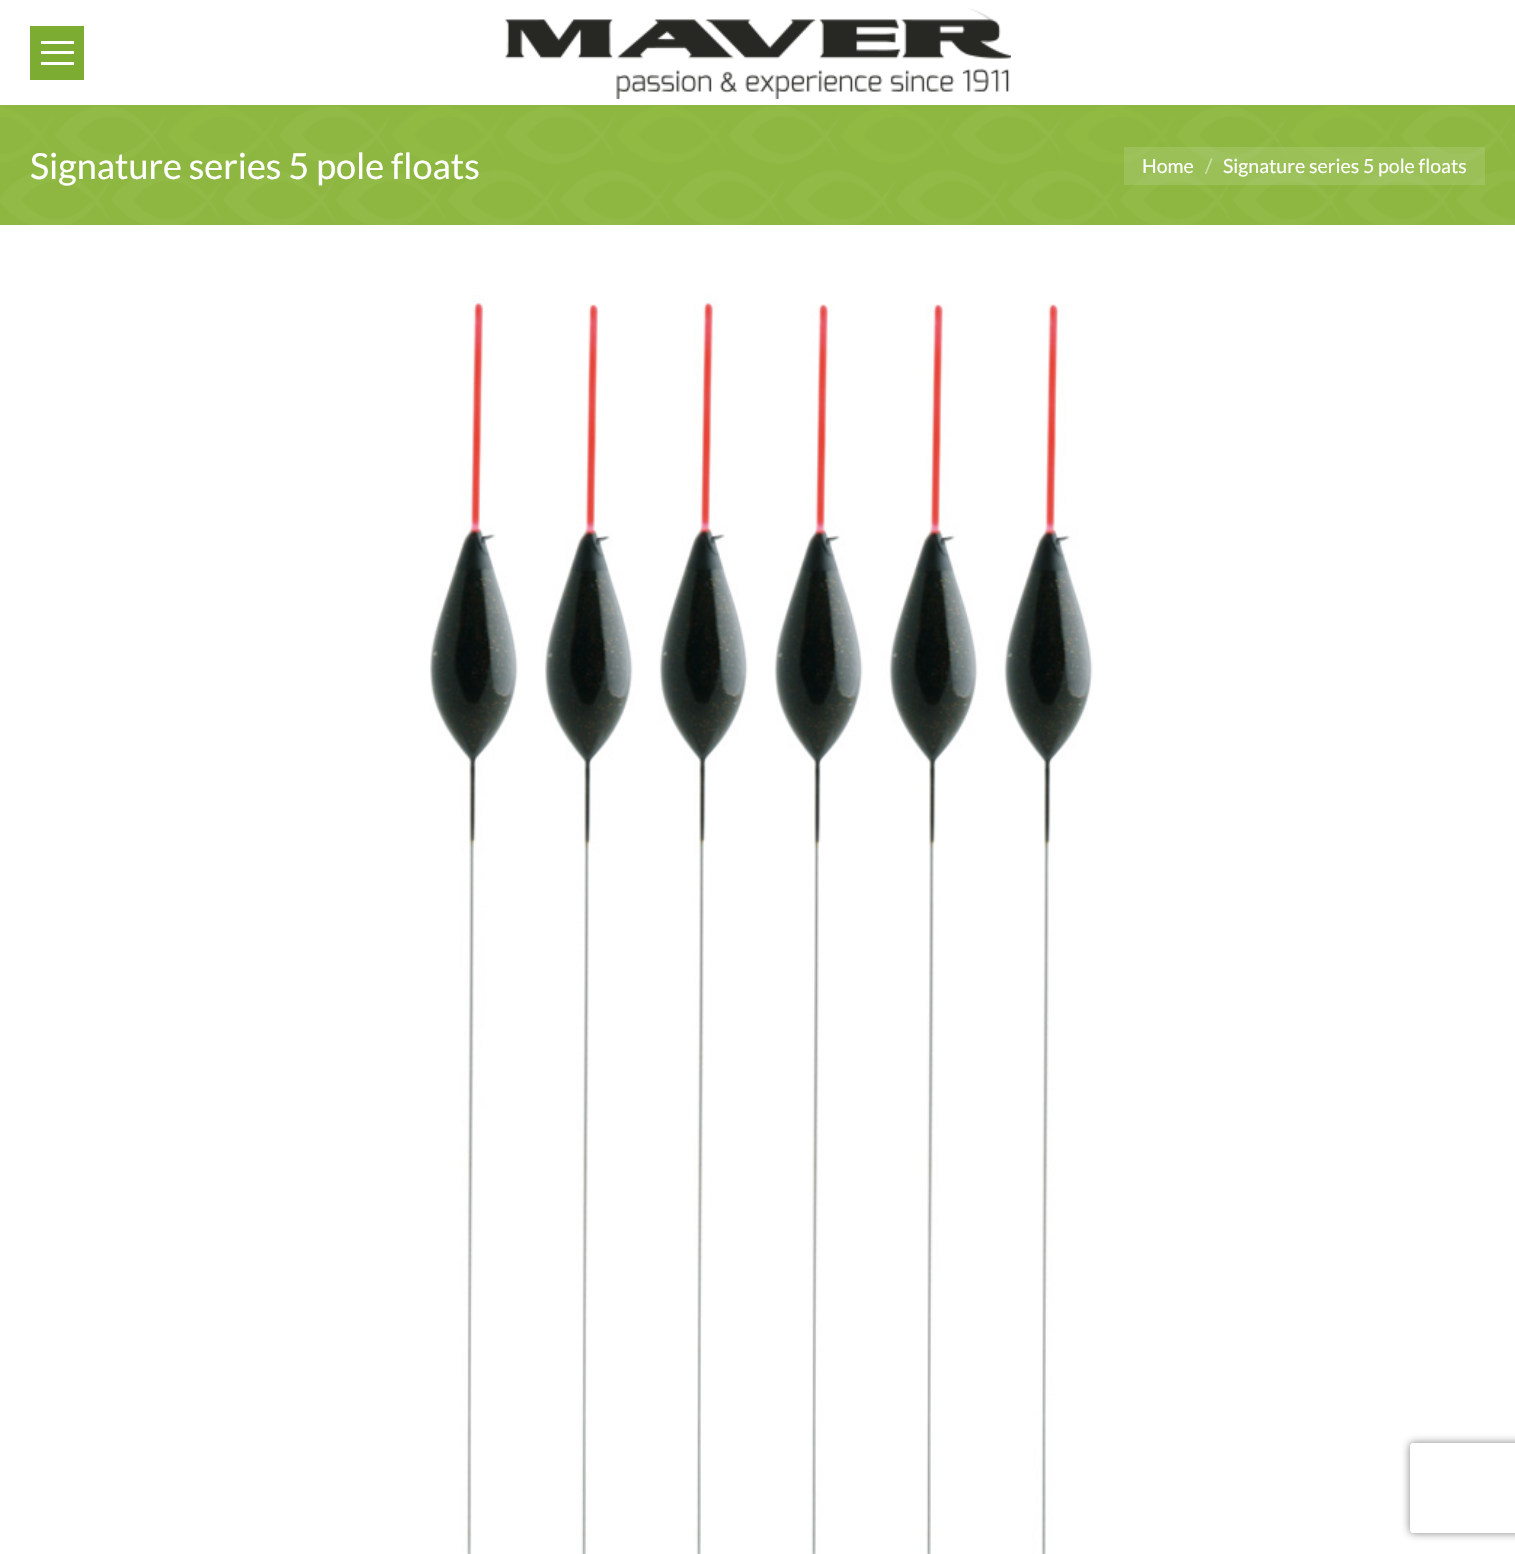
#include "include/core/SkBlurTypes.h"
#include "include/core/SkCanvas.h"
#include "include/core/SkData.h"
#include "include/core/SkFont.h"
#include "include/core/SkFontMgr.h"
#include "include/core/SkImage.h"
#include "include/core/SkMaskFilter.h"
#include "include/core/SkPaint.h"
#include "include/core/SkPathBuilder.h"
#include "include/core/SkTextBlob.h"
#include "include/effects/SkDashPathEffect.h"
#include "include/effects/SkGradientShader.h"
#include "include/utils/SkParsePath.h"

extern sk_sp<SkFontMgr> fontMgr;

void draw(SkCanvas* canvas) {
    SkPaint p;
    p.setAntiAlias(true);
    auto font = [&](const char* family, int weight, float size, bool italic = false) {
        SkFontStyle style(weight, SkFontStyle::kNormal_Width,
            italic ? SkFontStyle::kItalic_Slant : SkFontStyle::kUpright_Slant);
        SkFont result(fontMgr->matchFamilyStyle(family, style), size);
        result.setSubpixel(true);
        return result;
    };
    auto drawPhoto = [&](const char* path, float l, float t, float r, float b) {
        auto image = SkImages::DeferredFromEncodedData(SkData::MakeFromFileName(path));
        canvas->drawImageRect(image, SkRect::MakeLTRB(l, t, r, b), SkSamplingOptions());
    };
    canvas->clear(0xFFFFFFFF);
    {
        const struct { float l, t, r, b; SkColor color; } items[] = {
            {30, 26, 84, 80, 0xFF7CAC32},
            {41, 41, 74, 44, 0xFFFFFFFF},
            {41, 51, 74, 54, 0xFFFFFFFF},
            {41, 62, 74, 65, 0xFFFFFFFF},
        };
        for (auto [l, t, r, b, color] : items) {
            p.setColor(color);
            canvas->drawRect(SkRect::MakeLTRB(l, t, r, b), p);
        }
    }
    drawPhoto("media/1.png", 505, 8, 1011, 99);
    p.setColor(0xFF8DB741);
    canvas->drawRect(SkRect::MakeLTRB(0, 105, 1515, 106), p);
    drawPhoto("media/2.png", 0, 106, 1515, 225);
    auto font1 = font("Lato", 400, 36);
    p.setColor(0xFFFFFFFF);
    canvas->drawString("Signature series 5 pole floats", 30, 179, font1, p);
    p.setColor(0x1FFFFFFF);
    canvas->drawRect(SkRect::MakeLTRB(1124, 147, 1485, 185), p);
    auto font2 = font("Lato", 400, 19.5f);
    p.setColor(0xFFFFFFFF);
    canvas->drawString("Home", 1142, 173, font2, p);
    p.setColor(0xFFCDE0AC);
    canvas->drawString("/", 1205, 173, font2, p);
    p.setColor(0xFFFFFFFF);
    canvas->drawString("Signature series 5 pole floats", 1223, 173, font2, p);
    drawPhoto("media/3.png", 430, 295, 1093, 1554);
    canvas->save();
    canvas->clipPath(SkPathBuilder(SkPathFillType::kEvenOdd).moveTo(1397, 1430).lineTo(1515, 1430).lineTo(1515, 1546).lineTo(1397, 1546).close().moveTo(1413, 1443).lineTo(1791, 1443).cubicTo(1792.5f, 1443, 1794, 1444.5f, 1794, 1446).lineTo(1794, 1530).cubicTo(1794, 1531.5f, 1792.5f, 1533, 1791, 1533).lineTo(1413, 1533).cubicTo(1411.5f, 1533, 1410, 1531.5f, 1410, 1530).lineTo(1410, 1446).cubicTo(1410, 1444.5f, 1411.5f, 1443, 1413, 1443).close().detach(), true);
    p.setColor(0xFF808080);
    p.setMaskFilter(SkMaskFilter::MakeBlur(kNormal_SkBlurStyle, 4));
    canvas->drawRoundRect(SkRect::MakeLTRB(1410, 1443, 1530, 1533), 3, 3, p);
    p.setMaskFilter(nullptr);
    canvas->restore();
}
